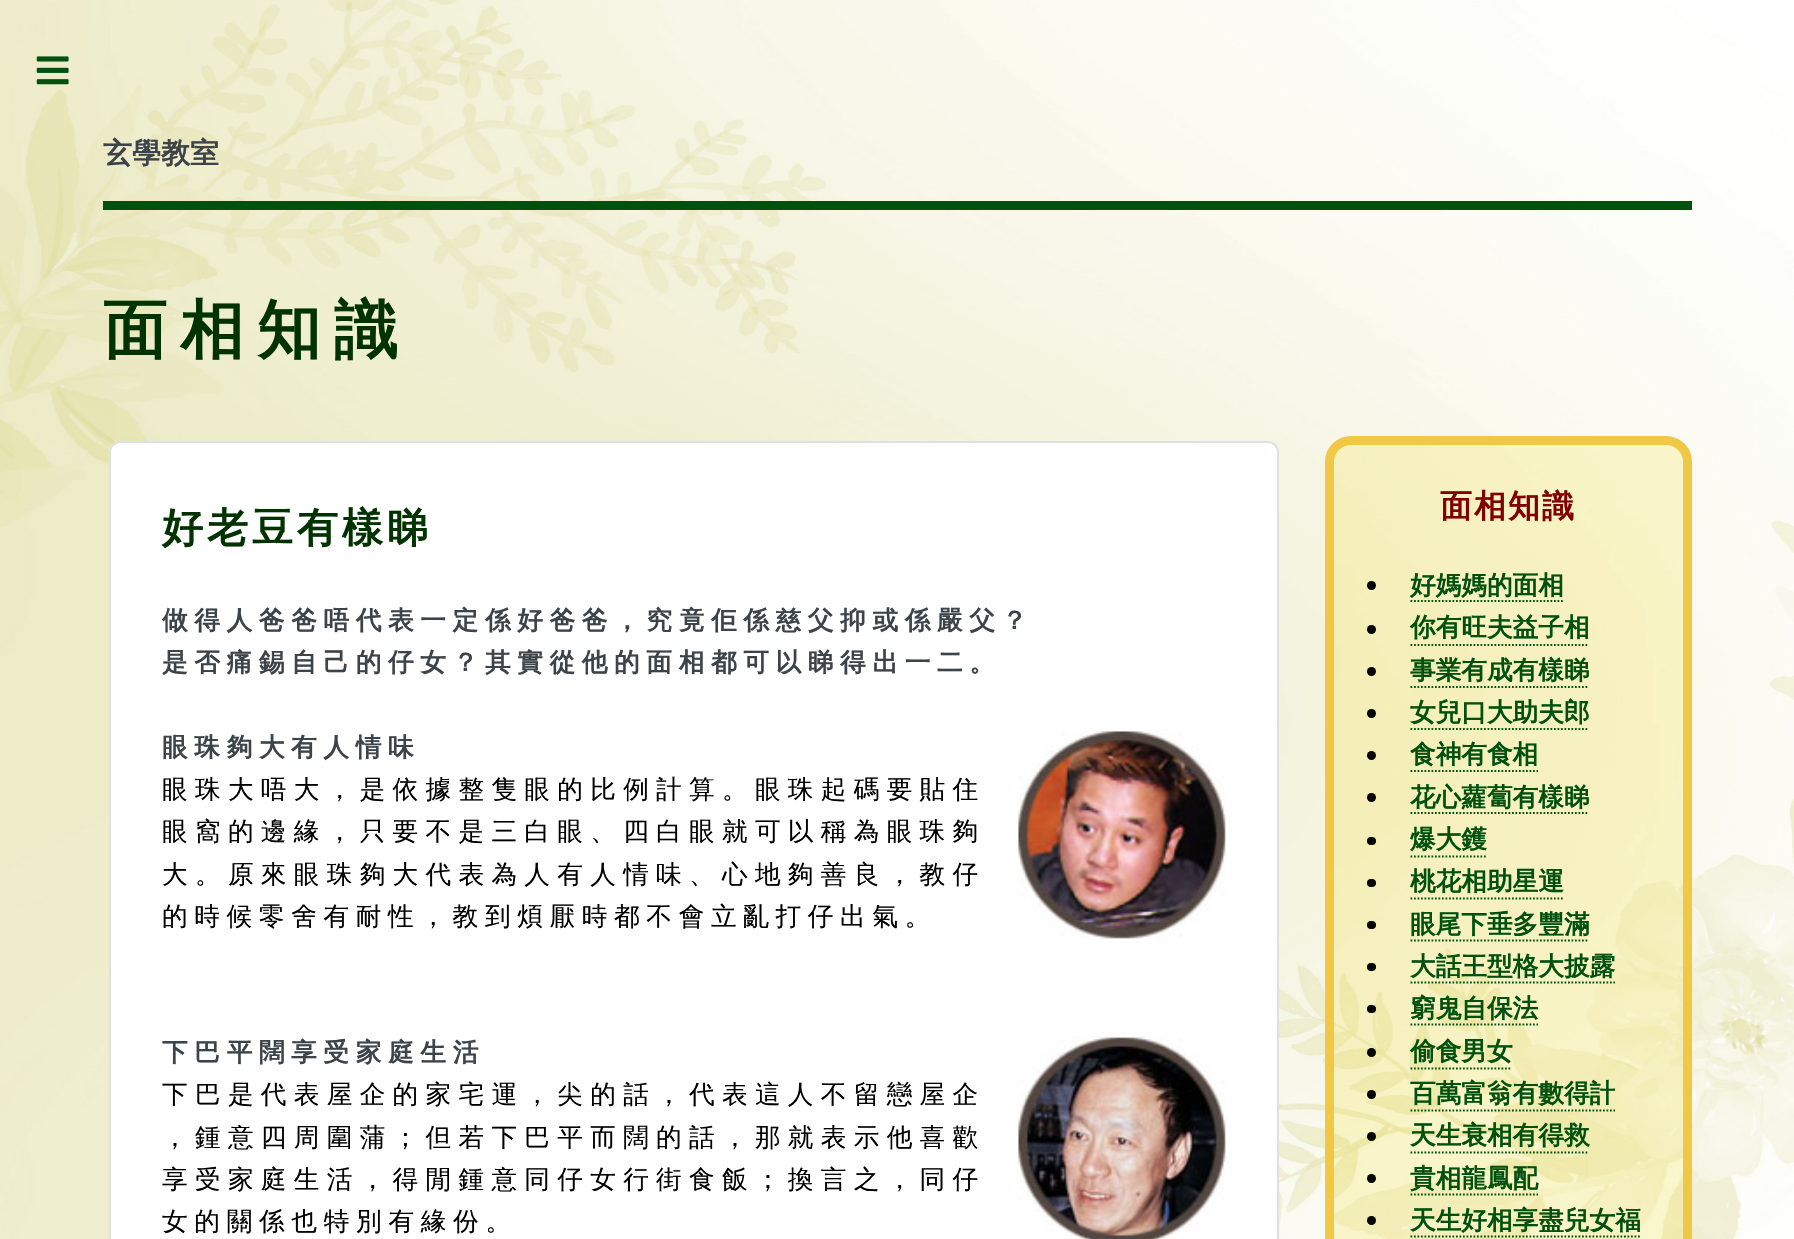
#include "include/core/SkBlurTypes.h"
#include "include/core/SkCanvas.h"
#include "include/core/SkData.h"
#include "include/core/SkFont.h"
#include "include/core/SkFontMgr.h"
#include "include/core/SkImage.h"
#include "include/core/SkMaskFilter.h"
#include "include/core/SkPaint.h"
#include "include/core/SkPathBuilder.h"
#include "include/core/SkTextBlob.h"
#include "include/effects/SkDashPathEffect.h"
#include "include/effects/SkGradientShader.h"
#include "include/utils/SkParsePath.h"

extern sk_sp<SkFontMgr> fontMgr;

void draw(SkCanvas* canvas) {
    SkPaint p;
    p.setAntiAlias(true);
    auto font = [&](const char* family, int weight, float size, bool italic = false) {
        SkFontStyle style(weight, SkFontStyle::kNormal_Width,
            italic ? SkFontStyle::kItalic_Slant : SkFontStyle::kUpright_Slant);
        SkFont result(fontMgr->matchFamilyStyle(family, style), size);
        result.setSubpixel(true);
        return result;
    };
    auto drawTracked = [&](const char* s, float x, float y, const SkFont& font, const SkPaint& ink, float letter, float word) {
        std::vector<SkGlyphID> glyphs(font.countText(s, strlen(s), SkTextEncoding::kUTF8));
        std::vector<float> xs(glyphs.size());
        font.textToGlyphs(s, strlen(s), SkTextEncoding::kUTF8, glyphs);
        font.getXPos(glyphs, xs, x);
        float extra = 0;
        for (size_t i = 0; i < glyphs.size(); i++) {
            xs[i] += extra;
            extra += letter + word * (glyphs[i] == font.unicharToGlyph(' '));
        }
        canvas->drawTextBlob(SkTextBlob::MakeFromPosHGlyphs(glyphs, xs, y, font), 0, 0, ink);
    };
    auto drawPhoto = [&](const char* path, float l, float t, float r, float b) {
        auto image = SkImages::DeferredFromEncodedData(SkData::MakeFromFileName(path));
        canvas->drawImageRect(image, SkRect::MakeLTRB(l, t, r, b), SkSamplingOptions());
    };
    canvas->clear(0xFFFFFFFF);
    drawPhoto("media/1.png", 0, 0, 1794, 1239);
    drawPhoto("media/2.png", 36, 56, 69, 85);
    p.setColor(0xFF00510E);
    canvas->drawRect(SkRect::MakeLTRB(103, 201, 1692, 210), p);
    auto font1 = font("WenQuanYi Zen Hei", 700, 29);
    p.setColor(0xFF3D4449);
    canvas->drawString("玄學教室", 103, 163, font1, p);
    auto font2 = font("WenQuanYi Zen Hei", 700, 64);
    p.setColor(0xFF003300);
    drawTracked("面相知識", 103, 352, font2, p, 13, 0);
    p.setColor(0xFFFFFFFF);
    canvas->drawRoundRect(SkRect::MakeLTRB(109, 441, 1279, 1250), 11, 11, p);
    p.setStyle(SkPaint::kStroke_Style);
    p.setStrokeWidth(2);
    p.setColor(0xBFD2D7D9);
    canvas->drawRoundRect(SkRect::MakeLTRB(110, 442, 1278, 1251), 10, 10, p);
    auto font3 = font("WenQuanYi Zen Hei", 700, 41);
    p.setStyle(SkPaint::kFill_Style);
    p.setColor(0xFF003300);
    drawTracked("好老豆有樣睇", 162, 542, font3, p, 4, 0);
    auto font4 = font("WenQuanYi Zen Hei", 700, 25.65f);
    p.setColor(0xFF3D4449);
    drawTracked("做 得 人 爸 爸 唔 代 表 一 定 係 好 爸 爸 ， 究 竟 佢 係 慈 父 抑 或 係 嚴 父 ？", 162, 629, font4, p, 0, -1.05f);
    drawTracked("是 否 痛 錫 自 己 的 仔 女 ？ 其 實 從 他 的 面 相 都 可 以 睇 得 出 一 二 。", 162, 671, font4, p, 0, -1.05f);
    drawTracked("眼 珠 夠 大", 162, 756, font4, p, 0, -1);
    drawPhoto("media/3.png", 1017, 730, 1226, 939);
    drawTracked("有 人 情 味", 291, 756, font4, p, 0, -1);
    auto font5 = font("WenQuanYi Zen Hei", 500, 25.65f);
    p.setColor(0xFF000000);
    {
        const struct { const char* s; float x, y; } items[] = {
            {"眼 珠 大 唔 大 ， 是 依 據 整 隻 眼 的 比 例 計 算 。 眼 珠 起 碼 要 貼 住", 162, 798},
            {"眼 窩 的 邊 緣 ， 只 要 不 是 三 白 眼 、 四 白 眼 就 可 以 稱 為 眼 珠 夠", 162, 840},
            {"大 。 原 來 眼 珠 夠 大 代 表 為 人 有 人 情 味 、 心 地 夠 善 良 ， 教 仔", 162, 883},
        };
        for (auto [s, x, y] : items) {
            drawTracked(s, x, y, font5, p, 0.3f, -1);
        }
    }
    drawTracked("的 時 候 零 舍 有 耐 性 ， 教 到 煩 厭 時 都 不 會 立 亂 打 仔 出 氣 。", 162, 925, font5, p, 0, -1.05f);
    p.setColor(0xFF3D4449);
    drawTracked("下 巴 平 闊", 162, 1061, font4, p, 0, -1);
    drawTracked("享 受 家 庭 生 活", 291, 1061, font4, p, 0, -1);
    p.setColor(0xFF000000);
    {
        const struct { const char* s; float x, y; } items[] = {
            {"下 巴 是 代 表 屋 企 的 家 宅 運 ， 尖 的 話 ， 代 表 這 人 不 留 戀 屋 企", 162, 1103},
            {"， 鍾 意 四 周 圍 蒲 ； 但 若 下 巴 平 而 闊 的 話 ， 那 就 表 示 他 喜 歡", 162, 1146},
            {"享 受 家 庭 生 活 ， 得 閒 鍾 意 同 仔 女 行 街 食 飯 ； 換 言 之 ， 同 仔", 162, 1188},
        };
        for (auto [s, x, y] : items) {
            drawTracked(s, x, y, font5, p, 0.3f, -1);
        }
    }
    drawTracked("女 的 關 係 也 特 別 有 緣 份 。", 162, 1230, font5, p, 0, -1);
    drawPhoto("media/4.png", 1017, 1036, 1227, 1239);
    p.setColor(0x33F0DC1E);
    canvas->drawRoundRect(SkRect::MakeLTRB(1329.5f, 440.5f, 1687.5f, 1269.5f), 21.5f, 21.5f, p);
    p.setStyle(SkPaint::kStroke_Style);
    p.setStrokeWidth(9);
    p.setColor(0xFFF0C846);
    canvas->drawRoundRect(SkRect::MakeLTRB(1329.5f, 440.5f, 1687.5f, 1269.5f), 21.5f, 21.5f, p);
    auto font6 = font("WenQuanYi Zen Hei", 700, 32);
    p.setStyle(SkPaint::kFill_Style);
    p.setColor(0xFF800000);
    drawTracked("面相知識", 1440, 517, font6, p, 2, 0);
    p.setColor(0xFF000000);
    canvas->drawCircle(1371.5f, 585.5f, 4.5f, p);
    p.setColor(0xFF00510E);
    canvas->drawString("好媽媽的面相", 1410, 594, font4, p);
    p.setStyle(SkPaint::kStroke_Style);
    p.setStrokeWidth(1.8f);
    p.setPathEffect(SkDashPathEffect::Make({{1.75f, 1.75f}}, 0));
    canvas->drawPath(SkPathBuilder().moveTo(1410.5f, 601).lineTo(1564.5f, 601).detach(), p);
    p.setPathEffect(nullptr);
    p.setStyle(SkPaint::kFill_Style);
    p.setColor(0xFF000000);
    canvas->drawCircle(1371.5f, 629.5f, 4.5f, p);
    p.setColor(0xFF00510E);
    canvas->drawString("你有旺夫益子相", 1410, 636, font4, p);
    p.setStyle(SkPaint::kStroke_Style);
    p.setPathEffect(SkDashPathEffect::Make({{1.75f, 1.75f}}, 0));
    canvas->drawPath(SkPathBuilder().moveTo(1410.5f, 645).lineTo(1589, 645).detach(), p);
    p.setPathEffect(nullptr);
    p.setStyle(SkPaint::kFill_Style);
    p.setColor(0xFF000000);
    canvas->drawCircle(1371.5f, 671.5f, 4.5f, p);
    p.setColor(0xFF00510E);
    canvas->drawString("事業有成有樣睇", 1410, 679, font4, p);
    p.setStyle(SkPaint::kStroke_Style);
    p.setPathEffect(SkDashPathEffect::Make({{1.75f, 1.75f}}, 0));
    canvas->drawPath(SkPathBuilder().moveTo(1410.5f, 687).lineTo(1589, 687).detach(), p);
    p.setPathEffect(nullptr);
    p.setStyle(SkPaint::kFill_Style);
    p.setColor(0xFF000000);
    canvas->drawCircle(1371.5f, 713.5f, 4.5f, p);
    p.setColor(0xFF00510E);
    canvas->drawString("女兒口大助夫郎", 1410, 721, font4, p);
    p.setStyle(SkPaint::kStroke_Style);
    p.setPathEffect(SkDashPathEffect::Make({{1.75f, 1.75f}}, 0));
    canvas->drawPath(SkPathBuilder().moveTo(1410.5f, 729).lineTo(1589, 729).detach(), p);
    p.setPathEffect(nullptr);
    p.setStyle(SkPaint::kFill_Style);
    p.setColor(0xFF000000);
    canvas->drawCircle(1371.5f, 755.5f, 4.5f, p);
    p.setColor(0xFF00510E);
    canvas->drawString("食神有食相", 1410, 763, font4, p);
    p.setStyle(SkPaint::kStroke_Style);
    p.setPathEffect(SkDashPathEffect::Make({{1.75f, 1.75f}}, 0));
    canvas->drawPath(SkPathBuilder().moveTo(1410.5f, 771).lineTo(1538, 771).detach(), p);
    p.setPathEffect(nullptr);
    p.setStyle(SkPaint::kFill_Style);
    p.setColor(0xFF000000);
    canvas->drawCircle(1371.5f, 797.5f, 4.5f, p);
    p.setColor(0xFF00510E);
    canvas->drawString("花心蘿蔔有樣睇", 1410, 806, font4, p);
    p.setStyle(SkPaint::kStroke_Style);
    p.setPathEffect(SkDashPathEffect::Make({{1.75f, 1.75f}}, 0));
    canvas->drawPath(SkPathBuilder().moveTo(1410.5f, 813).lineTo(1589, 813).detach(), p);
    p.setPathEffect(nullptr);
    p.setStyle(SkPaint::kFill_Style);
    p.setColor(0xFF000000);
    canvas->drawRoundRect(SkRect::MakeLTRB(1367, 837, 1376, 845), 4, 4, p);
    p.setColor(0xFF00510E);
    canvas->drawString("爆大鑊", 1410, 848, font4, p);
    p.setStyle(SkPaint::kStroke_Style);
    p.setPathEffect(SkDashPathEffect::Make({{1.75f, 1.75f}}, 0));
    canvas->drawPath(SkPathBuilder().moveTo(1410.5f, 856.5f).lineTo(1487.5f, 856.5f).detach(), p);
    p.setPathEffect(nullptr);
    p.setStyle(SkPaint::kFill_Style);
    p.setColor(0xFF000000);
    canvas->drawRoundRect(SkRect::MakeLTRB(1367, 879, 1376, 887), 4, 4, p);
    p.setColor(0xFF00510E);
    canvas->drawString("桃花相助星運", 1410, 890, font4, p);
    p.setStyle(SkPaint::kStroke_Style);
    p.setPathEffect(SkDashPathEffect::Make({{1.75f, 1.75f}}, 0));
    canvas->drawPath(SkPathBuilder().moveTo(1410.5f, 898.5f).lineTo(1564.5f, 898.5f).detach(), p);
    p.setPathEffect(nullptr);
    p.setStyle(SkPaint::kFill_Style);
    p.setColor(0xFF000000);
    canvas->drawRoundRect(SkRect::MakeLTRB(1367, 921, 1376, 929), 4, 4, p);
    p.setColor(0xFF00510E);
    canvas->drawString("眼尾下垂多豐滿", 1410, 933, font4, p);
    p.setStyle(SkPaint::kStroke_Style);
    p.setPathEffect(SkDashPathEffect::Make({{1.75f, 1.75f}}, 0));
    canvas->drawPath(SkPathBuilder().moveTo(1410.5f, 940.5f).lineTo(1589, 940.5f).detach(), p);
    p.setPathEffect(nullptr);
    p.setStyle(SkPaint::kFill_Style);
    p.setColor(0xFF000000);
    canvas->drawRoundRect(SkRect::MakeLTRB(1367, 963, 1376, 971), 4, 4, p);
    p.setColor(0xFF00510E);
    canvas->drawString("大話王型格大披露", 1410, 975, font4, p);
    p.setStyle(SkPaint::kStroke_Style);
    p.setPathEffect(SkDashPathEffect::Make({{1.75f, 1.75f}}, 0));
    canvas->drawPath(SkPathBuilder().moveTo(1410.5f, 982.5f).lineTo(1615, 982.5f).detach(), p);
    p.setPathEffect(nullptr);
    p.setStyle(SkPaint::kFill_Style);
    p.setColor(0xFF000000);
    canvas->drawRoundRect(SkRect::MakeLTRB(1367, 1005, 1376, 1013), 4, 4, p);
    p.setColor(0xFF00510E);
    canvas->drawString("窮鬼自保法", 1410, 1017, font4, p);
    p.setStyle(SkPaint::kStroke_Style);
    p.setPathEffect(SkDashPathEffect::Make({{1.75f, 1.75f}}, 0));
    canvas->drawPath(SkPathBuilder().moveTo(1410.5f, 1024.5f).lineTo(1538, 1024.5f).detach(), p);
    p.setPathEffect(nullptr);
    p.setStyle(SkPaint::kFill_Style);
    p.setColor(0xFF000000);
    canvas->drawCircle(1371.5f, 1052.5f, 4.5f, p);
    p.setColor(0xFF00510E);
    canvas->drawString("偷食男女", 1410, 1060, font4, p);
    p.setStyle(SkPaint::kStroke_Style);
    p.setPathEffect(SkDashPathEffect::Make({{1.75f, 1.75f}}, 0));
    canvas->drawPath(SkPathBuilder().moveTo(1410.5f, 1068.5f).lineTo(1512, 1068.5f).detach(), p);
    p.setPathEffect(nullptr);
    p.setStyle(SkPaint::kFill_Style);
    p.setColor(0xFF000000);
    canvas->drawCircle(1371.5f, 1094.5f, 4.5f, p);
    p.setColor(0xFF00510E);
    canvas->drawString("百萬富翁有數得計", 1410, 1102, font4, p);
    p.setStyle(SkPaint::kStroke_Style);
    p.setPathEffect(SkDashPathEffect::Make({{1.75f, 1.75f}}, 0));
    canvas->drawPath(SkPathBuilder().moveTo(1410.5f, 1110.5f).lineTo(1615, 1110.5f).detach(), p);
    p.setPathEffect(nullptr);
    p.setStyle(SkPaint::kFill_Style);
    p.setColor(0xFF000000);
    canvas->drawCircle(1371.5f, 1136.5f, 4.5f, p);
    p.setColor(0xFF00510E);
    canvas->drawString("天生衰相有得救", 1410, 1144, font4, p);
    p.setStyle(SkPaint::kStroke_Style);
    p.setPathEffect(SkDashPathEffect::Make({{1.75f, 1.75f}}, 0));
    canvas->drawPath(SkPathBuilder().moveTo(1410.5f, 1152.5f).lineTo(1589, 1152.5f).detach(), p);
    p.setPathEffect(nullptr);
    p.setStyle(SkPaint::kFill_Style);
    p.setColor(0xFF000000);
    canvas->drawCircle(1371.5f, 1178.5f, 4.5f, p);
    p.setColor(0xFF00510E);
    canvas->drawString("貴相龍鳳配", 1410, 1187, font4, p);
    p.setStyle(SkPaint::kStroke_Style);
    p.setPathEffect(SkDashPathEffect::Make({{1.75f, 1.75f}}, 0));
    canvas->drawPath(SkPathBuilder().moveTo(1410.5f, 1194.5f).lineTo(1538, 1194.5f).detach(), p);
    p.setPathEffect(nullptr);
    p.setStyle(SkPaint::kFill_Style);
    p.setColor(0xFF000000);
    canvas->drawCircle(1371.5f, 1220.5f, 4.5f, p);
    p.setColor(0xFF00510E);
    canvas->drawString("天生好相享盡兒女福", 1410, 1229, font4, p);
    p.setStyle(SkPaint::kStroke_Style);
    p.setPathEffect(SkDashPathEffect::Make({{1.75f, 1.75f}}, 0));
    canvas->drawPath(SkPathBuilder().moveTo(1410.5f, 1236.5f).lineTo(1641.5f, 1236.5f).detach(), p);
    p.setPathEffect(nullptr);
}
